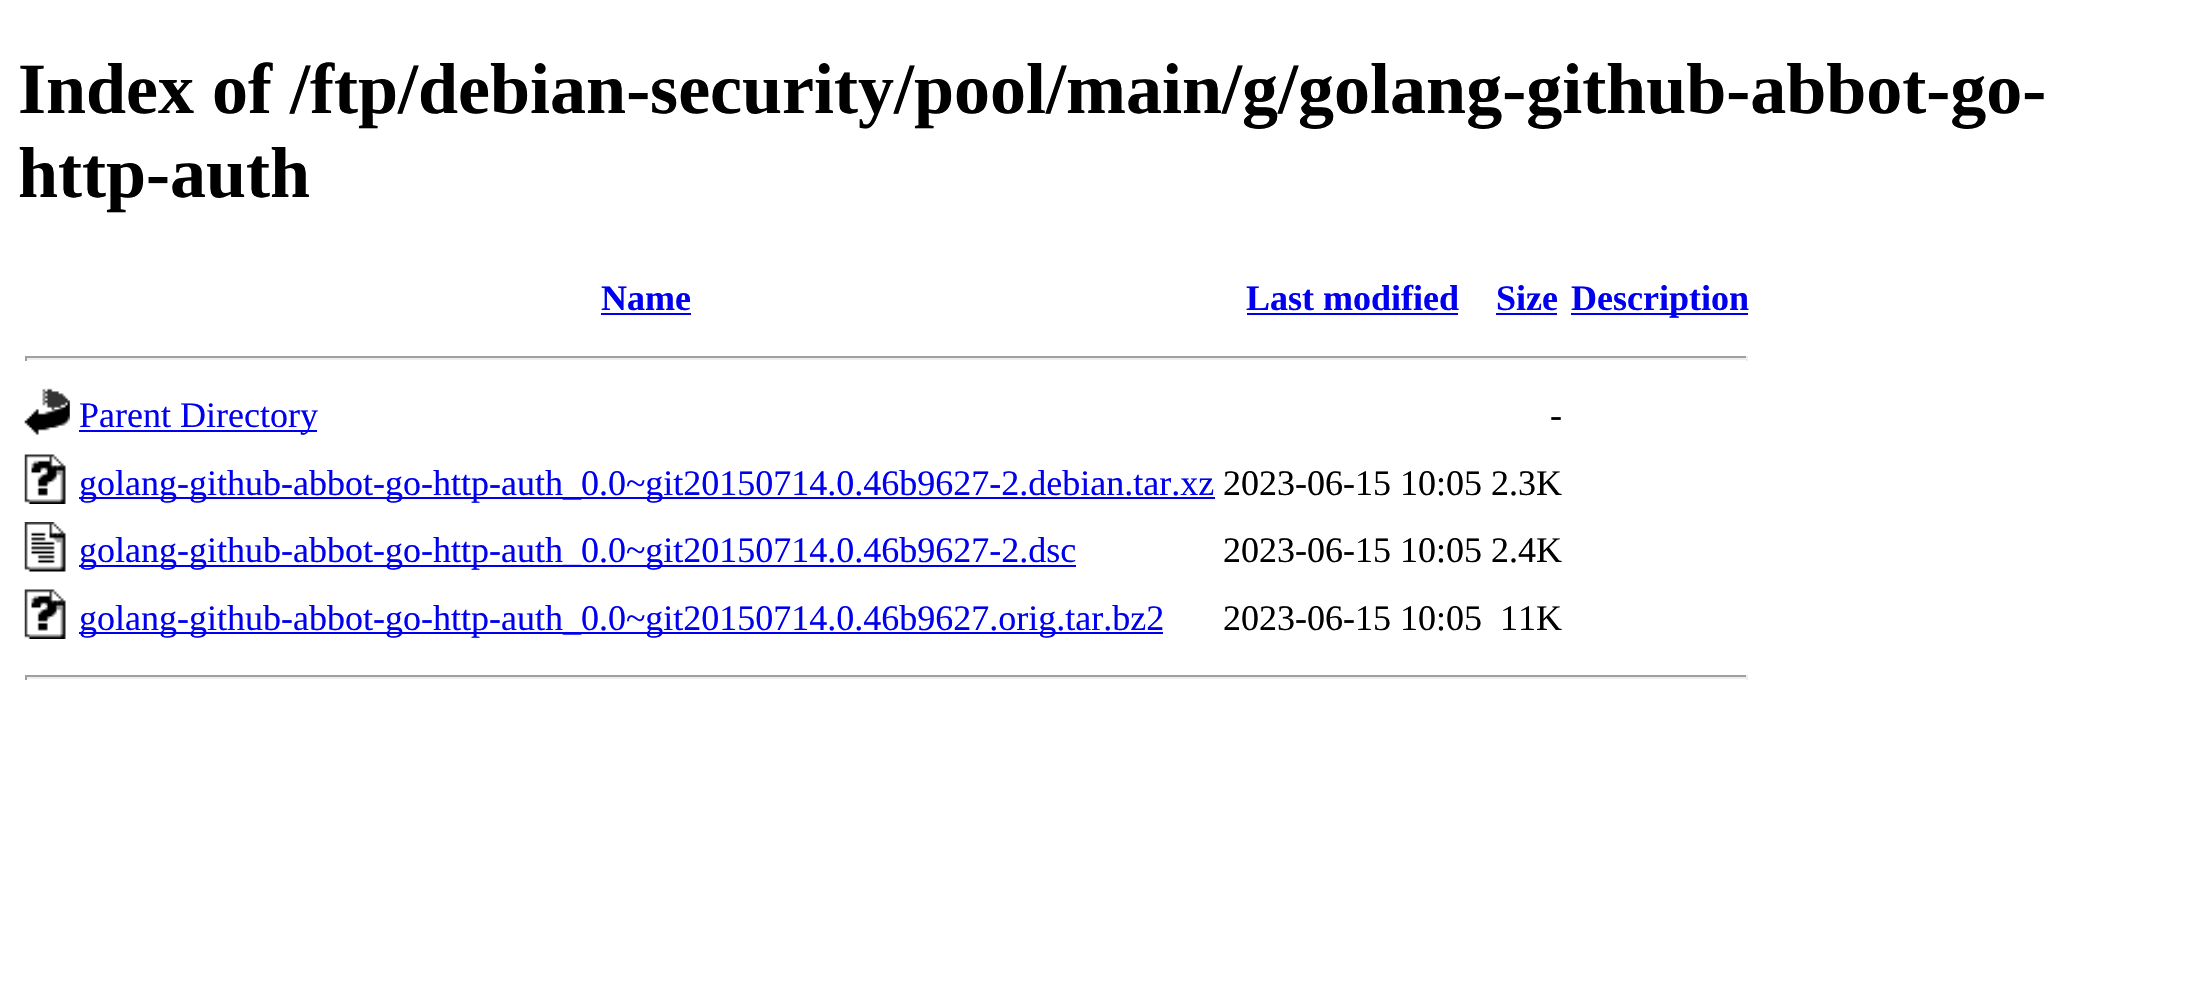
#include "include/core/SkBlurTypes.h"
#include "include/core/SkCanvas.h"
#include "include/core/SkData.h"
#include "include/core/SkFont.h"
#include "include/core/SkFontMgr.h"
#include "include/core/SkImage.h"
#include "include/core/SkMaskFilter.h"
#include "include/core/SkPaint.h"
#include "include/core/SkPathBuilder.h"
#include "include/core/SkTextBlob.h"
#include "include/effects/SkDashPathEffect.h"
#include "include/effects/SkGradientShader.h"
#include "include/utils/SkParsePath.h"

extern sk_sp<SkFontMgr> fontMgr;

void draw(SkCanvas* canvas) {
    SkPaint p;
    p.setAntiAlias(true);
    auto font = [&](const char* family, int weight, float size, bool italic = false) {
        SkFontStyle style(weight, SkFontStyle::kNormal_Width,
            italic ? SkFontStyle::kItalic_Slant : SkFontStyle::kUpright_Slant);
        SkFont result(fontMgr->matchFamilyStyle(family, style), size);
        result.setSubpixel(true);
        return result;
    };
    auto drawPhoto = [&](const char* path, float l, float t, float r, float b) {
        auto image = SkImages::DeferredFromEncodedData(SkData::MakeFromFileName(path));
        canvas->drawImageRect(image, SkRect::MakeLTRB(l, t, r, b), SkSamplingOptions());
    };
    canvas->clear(0xFFFFFFFF);
    auto font1 = font("Liberation Serif", 700, 72);
    p.setColor(0xFF000000);
    canvas->drawString("Index of /ftp/debian-security/pool/main/g/golang-github-abbot-go-", 18, 113, font1, p);
    canvas->drawString("http-auth", 18, 197, font1, p);
    auto font2 = font("Liberation Serif", 700, 36);
    p.setColor(0xFF0000EE);
    canvas->drawString("Name", 601, 310, font2, p);
    canvas->drawRect(SkRect::MakeLTRB(601, 313, 691, 315), p);
    canvas->drawString("Last modified", 1246, 310, font2, p);
    canvas->drawRect(SkRect::MakeLTRB(1247, 313, 1458, 315), p);
    canvas->drawString("Size", 1496, 310, font2, p);
    canvas->drawRect(SkRect::MakeLTRB(1496, 313, 1557, 315), p);
    canvas->drawRect(SkRect::MakeLTRB(1571, 313, 1748, 315), p);
    canvas->drawString("Description", 1571, 310, font2, p);
    {
        const struct { float l, t, r, b; SkColor color; } items[] = {
            {25, 356, 1748, 358, 0xFF9F9F9F},
            {1746, 356, 1748, 361, 0xFFEEEEEE},
            {25, 358, 1748, 360, 0xFFEEEEEE},
            {25, 356, 27, 361, 0xFF9F9F9F},
        };
        for (auto [l, t, r, b, color] : items) {
            p.setColor(color);
            canvas->drawRect(SkRect::MakeLTRB(l, t, r, b), p);
        }
    }
    drawPhoto("media/1.png", 24, 388, 70, 435);
    p.setColor(0xFF0000EE);
    canvas->drawRect(SkRect::MakeLTRB(79, 430, 317, 432), p);
    auto font3 = font("Liberation Serif", 400, 36);
    canvas->drawString("Parent Directory", 79, 427, font3, p);
    p.setColor(0xFF000000);
    canvas->drawString("-", 1550, 427, font3, p);
    drawPhoto("media/2.png", 24, 454, 66, 504);
    p.setColor(0xFF0000EE);
    canvas->drawRect(SkRect::MakeLTRB(79, 497, 1215, 499), p);
    canvas->drawString("golang-github-abbot-go-http-auth_0.0~git20150714.0.46b9627-2.debian.tar.xz", 79, 495, font3, p);
    p.setColor(0xFF000000);
    canvas->drawString("2023-06-15 10:05 2.3K", 1223, 495, font3, p);
    drawPhoto("media/3.png", 24, 522, 66, 572);
    p.setColor(0xFF0000EE);
    canvas->drawRect(SkRect::MakeLTRB(79, 565, 1076, 567), p);
    canvas->drawString("golang-github-abbot-go-http-auth_0.0~git20150714.0.46b9627-2.dsc", 79, 562, font3, p);
    p.setColor(0xFF000000);
    canvas->drawString("2023-06-15 10:05 2.4K", 1223, 562, font3, p);
    drawPhoto("media/2.png", 24, 589, 66, 639);
    p.setColor(0xFF0000EE);
    canvas->drawRect(SkRect::MakeLTRB(79, 632, 1163, 634), p);
    canvas->drawString("golang-github-abbot-go-http-auth_0.0~git20150714.0.46b9627.orig.tar.bz2", 79, 630, font3, p);
    p.setColor(0xFF000000);
    canvas->drawString("2023-06-15 10:05", 1223, 630, font3, p);
    canvas->drawString("11K", 1500, 630, font3, p);
    {
        const struct { float l, t, r, b; SkColor color; } items[] = {
            {25, 675, 1748, 677, 0xFF9F9F9F},
            {1746, 675, 1748, 680, 0xFFEEEEEE},
            {25, 677, 1748, 679, 0xFFEEEEEE},
            {25, 675, 27, 680, 0xFF9F9F9F},
        };
        for (auto [l, t, r, b, color] : items) {
            p.setColor(color);
            canvas->drawRect(SkRect::MakeLTRB(l, t, r, b), p);
        }
    }
}
